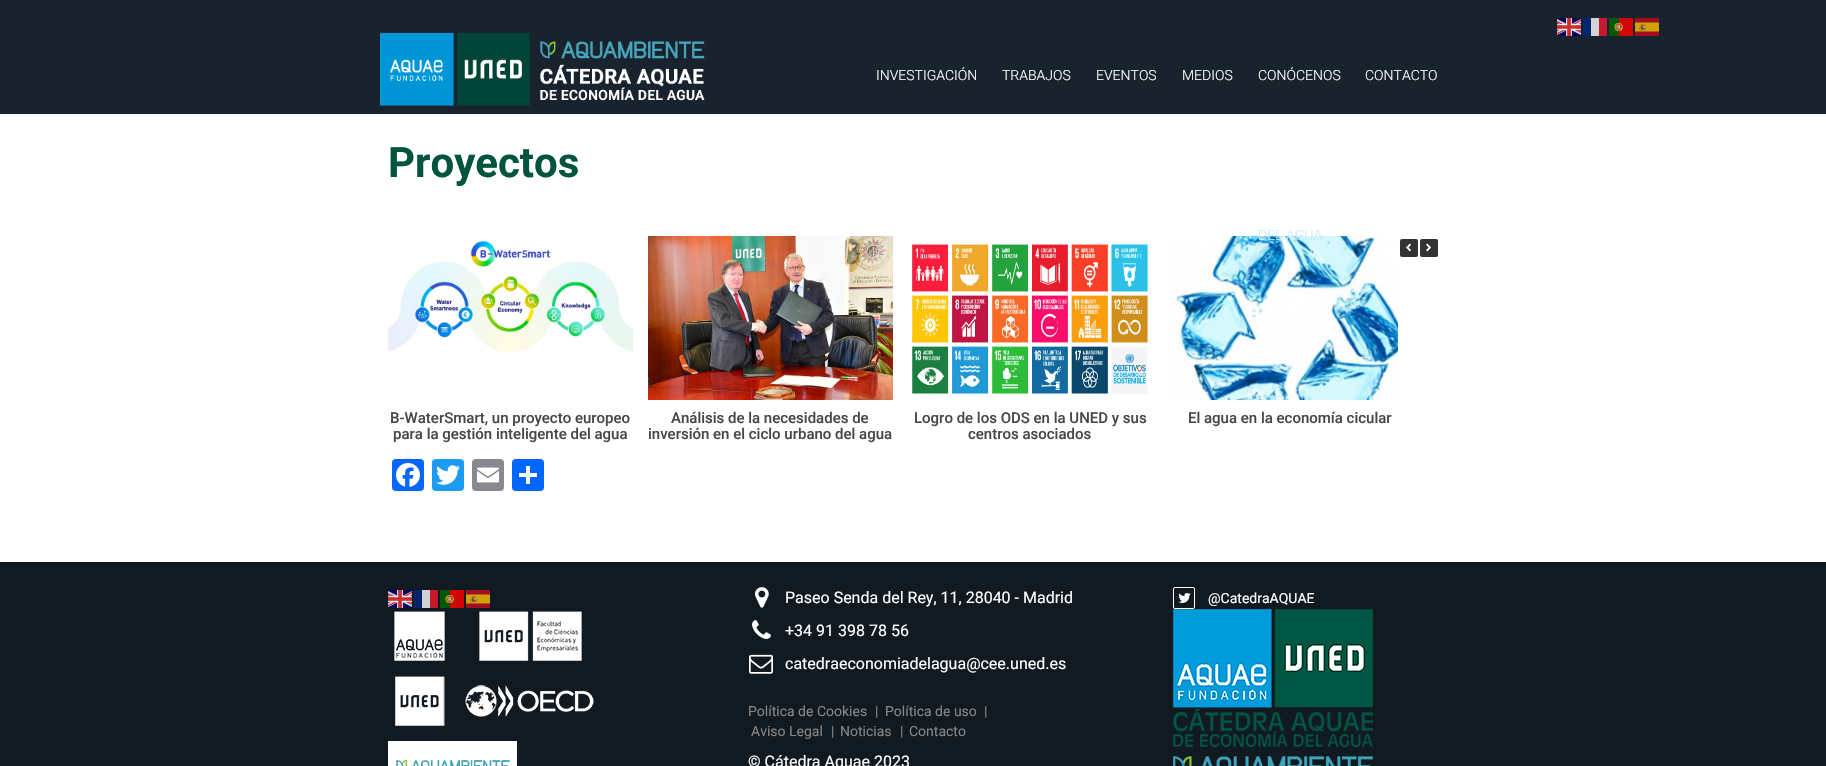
#include "include/core/SkBlurTypes.h"
#include "include/core/SkCanvas.h"
#include "include/core/SkData.h"
#include "include/core/SkFont.h"
#include "include/core/SkFontMgr.h"
#include "include/core/SkImage.h"
#include "include/core/SkMaskFilter.h"
#include "include/core/SkPaint.h"
#include "include/core/SkPathBuilder.h"
#include "include/core/SkTextBlob.h"
#include "include/effects/SkDashPathEffect.h"
#include "include/effects/SkGradientShader.h"
#include "include/utils/SkParsePath.h"

extern sk_sp<SkFontMgr> fontMgr;

void draw(SkCanvas* canvas) {
    SkPaint p;
    p.setAntiAlias(true);
    auto font = [&](const char* family, int weight, float size, bool italic = false) {
        SkFontStyle style(weight, SkFontStyle::kNormal_Width,
            italic ? SkFontStyle::kItalic_Slant : SkFontStyle::kUpright_Slant);
        SkFont result(fontMgr->matchFamilyStyle(family, style), size);
        result.setSubpixel(true);
        return result;
    };
    auto drawPhoto = [&](const char* path, float l, float t, float r, float b) {
        auto image = SkImages::DeferredFromEncodedData(SkData::MakeFromFileName(path));
        canvas->drawImageRect(image, SkRect::MakeLTRB(l, t, r, b), SkSamplingOptions());
    };
    canvas->clear(0xFFFFFFFF);
    p.setColor(0xFF19232D);
    canvas->drawRect(SkRect::MakeLTRB(0, 0, 1826, 114), p);
    drawPhoto("media/1.png", 1557, 18, 1581, 36);
    {
        const struct { float l, t, r, b; SkColor color; } items[] = {
            {1583, 18, 1591, 36, 0xFF05256F},
            {1591, 18, 1599, 36, 0xFFD1D3D5},
            {1599, 18, 1607, 36, 0xFFC71A2F},
        };
        for (auto [l, t, r, b, color] : items) {
            p.setColor(color);
            canvas->drawRect(SkRect::MakeLTRB(l, t, r, b), p);
        }
    }
    drawPhoto("media/2.png", 1609, 18, 1633, 36);
    drawPhoto("media/3.png", 1635, 18, 1659, 36);
    drawPhoto("media/4.png", 380, 32, 705, 106);
    auto font1 = font("Roboto", 300, 14);
    p.setColor(0xFFFFFFFF);
    {
        const struct { const char* s; float x, y; } items[] = {
            {"INVESTIGACIÓN", 876, 80},
            {"TRABAJOS", 1002, 80},
            {"EVENTOS", 1096, 80},
            {"MEDIOS", 1182, 80},
            {"CONÓCENOS", 1258, 80},
        };
        for (auto [s, x, y] : items) {
            canvas->drawString(s, x, y, font1, p);
        }
    }
    drawPhoto("media/10.png", 1170, 236, 1398, 400);
    p.setColor(0xFFCCEBF7);
    canvas->drawString("DEL AGUA", 1258, 240, font1, p);
    p.setColor(0xFFFFFFFF);
    canvas->drawString("CONTACTO", 1365, 80, font1, p);
    auto font2 = font("Roboto", 700, 42);
    p.setColor(0xFF00533E);
    canvas->drawString("Proyectos", 388, 177, font2, p);
    p.setColor(0xFF333333);
    canvas->drawRoundRect(SkRect::MakeLTRB(1400, 239, 1418, 257), 2, 2, p);
    drawPhoto("media/5.png", 1406, 243, 1411, 252);
    canvas->drawRoundRect(SkRect::MakeLTRB(1420, 239, 1438, 257), 2, 2, p);
    drawPhoto("media/6.png", 1426, 243, 1431, 252);
    drawPhoto("media/7.png", 388, 240, 633, 353);
    auto font3 = font("Roboto", 500, 15);
    p.setColor(0xFF474747);
    canvas->drawString("B-WaterSmart, un proyecto europeo", 390, 423, font3, p);
    canvas->drawString("para la gestión inteligente del agua", 393, 439, font3, p);
    drawPhoto("media/8.png", 648, 236, 893, 400);
    canvas->drawString("Análisis de la necesidades de", 671, 423, font3, p);
    canvas->drawString("inversión en el ciclo urbano del agua", 648, 439, font3, p);
    drawPhoto("media/9.png", 912, 244, 1148, 394);
    {
        const struct { const char* s; float x, y; } items[] = {
            {"Logro de los ODS en la UNED y sus", 914, 423},
            {"centros asociados", 968, 439},
            {"El agua en la economía cicular", 1188, 423},
        };
        for (auto [s, x, y] : items) {
            canvas->drawString(s, x, y, font3, p);
        }
    }
    p.setColor(0xFF0866FF);
    canvas->drawRoundRect(SkRect::MakeLTRB(392, 459, 424, 491), 4, 4, p);
    drawPhoto("media/11.png", 396, 463, 420, 487);
    p.setColor(0xFF1D9BF0);
    canvas->drawRoundRect(SkRect::MakeLTRB(432, 459, 464, 491), 4, 4, p);
    drawPhoto("media/12.png", 436, 465, 460, 485);
    p.setColor(0xFF888990);
    canvas->drawRoundRect(SkRect::MakeLTRB(472, 459, 504, 491), 4, 4, p);
    drawPhoto("media/13.png", 477, 467, 499, 483);
    p.setColor(0xFF0166FF);
    canvas->drawRoundRect(SkRect::MakeLTRB(512, 459, 544, 491), 4, 4, p);
    {
        const struct { float l, t, r, b; SkColor color; } items[] = {
            {526, 466, 530, 484, 0xFFFFFFFF},
            {519, 473, 537, 477, 0xFFFFFFFF},
            {0, 562, 1826, 766, 0xFF111A21},
        };
        for (auto [l, t, r, b, color] : items) {
            p.setColor(color);
            canvas->drawRect(SkRect::MakeLTRB(l, t, r, b), p);
        }
    }
    drawPhoto("media/14.png", 388, 590, 412, 608);
    {
        const struct { float l, t, r, b; SkColor color; } items[] = {
            {414, 590, 422, 608, 0xFF03246C},
            {422, 590, 430, 608, 0xFFCFD1D3},
            {430, 590, 438, 608, 0xFFC6182D},
        };
        for (auto [l, t, r, b, color] : items) {
            p.setColor(color);
            canvas->drawRect(SkRect::MakeLTRB(l, t, r, b), p);
        }
    }
    drawPhoto("media/15.png", 440, 590, 464, 608);
    drawPhoto("media/16.png", 466, 590, 490, 608);
    drawPhoto("media/17.png", 394, 611, 445, 661);
    drawPhoto("media/18.png", 479, 611, 582, 661);
    drawPhoto("media/19.png", 395, 676, 445, 726);
    drawPhoto("media/20.png", 465, 685, 594, 717);
    drawPhoto("media/21.png", 388, 741, 517, 766);
    drawPhoto("media/22.png", 755, 587, 769, 608);
    auto font4 = font("Roboto", 400, 16);
    p.setColor(0xFFFFFFFF);
    canvas->drawString("Paseo Senda del Rey, 11, 28040 - Madrid", 785, 603, font4, p);
    drawPhoto("media/23.png", 752, 620, 771, 639);
    canvas->drawString("+34 91 398 78 56", 785, 636, font4, p);
    drawPhoto("media/24.png", 749, 654, 773, 674);
    canvas->drawString("catedraeconomiadelagua@cee.uned.es", 785, 669, font4, p);
    auto font5 = font("Roboto", 400, 14);
    p.setColor(0xFF878787);
    {
        const struct { const char* s; float x, y; } items[] = {
            {"Política de Cookies", 748, 716},
            {"|", 875, 716},
            {"Política de uso", 885, 716},
            {"|", 984, 716},
            {"Aviso Legal", 751, 736},
            {"|", 831, 736},
            {"Noticias", 840, 736},
            {"|", 900, 736},
            {"Contacto", 909, 736},
        };
        for (auto [s, x, y] : items) {
            canvas->drawString(s, x, y, font5, p);
        }
    }
    p.setColor(0xFFFFFFFF);
    canvas->drawString("© Cátedra Aquae 2023", 748, 767, font4, p);
    p.setStyle(SkPaint::kStroke_Style);
    p.setStrokeWidth(1);
    canvas->drawRoundRect(SkRect::MakeLTRB(1173.5f, 587.5f, 1194.5f, 608.5f), 1.5f, 1.5f, p);
    drawPhoto("media/25.png", 1178, 593, 1191, 603);
    p.setStyle(SkPaint::kFill_Style);
    canvas->drawString("@CatedraAQUAE", 1208, 603, font5, p);
    drawPhoto("media/26.png", 1173, 609, 1373, 766);
}
